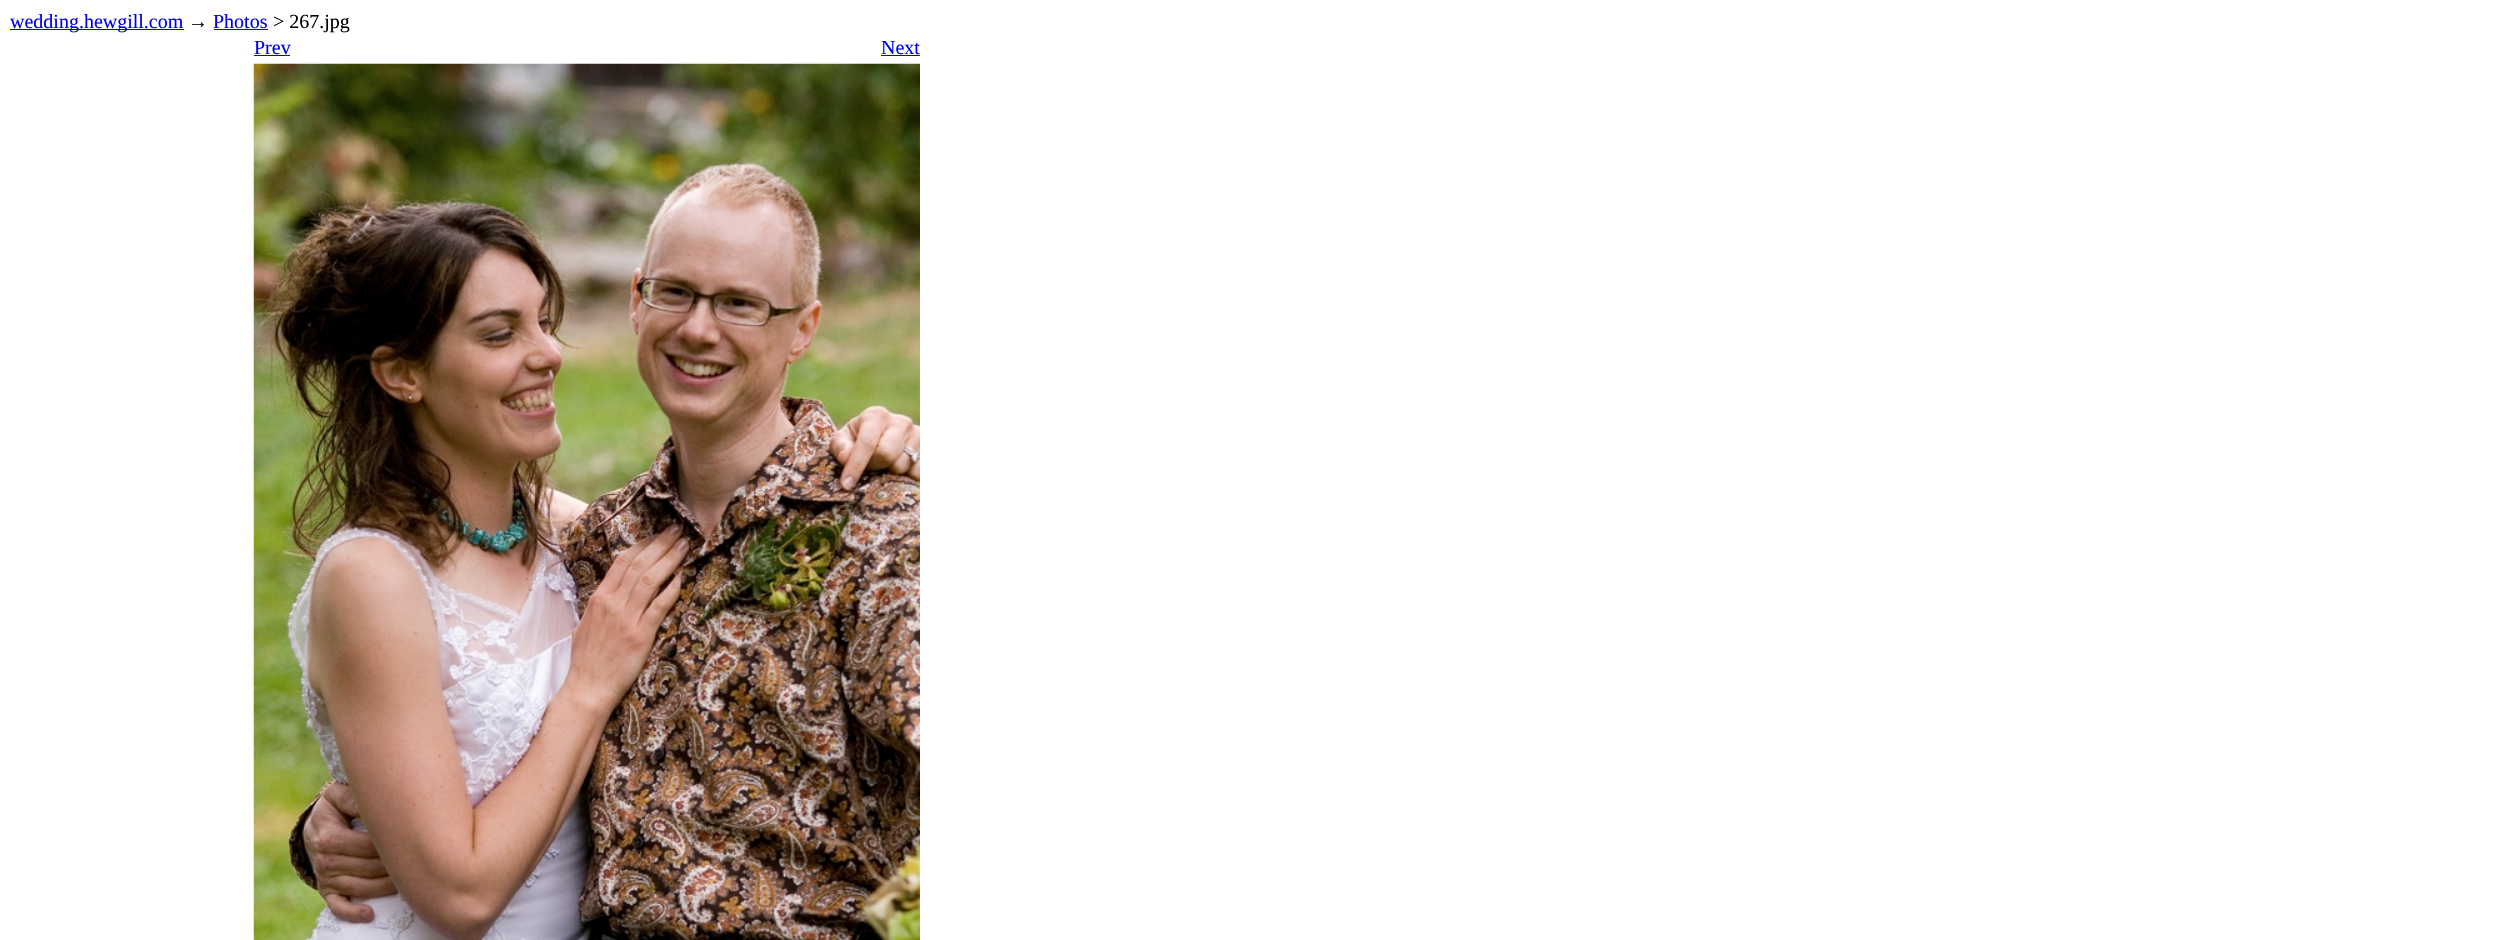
#include "include/core/SkBlurTypes.h"
#include "include/core/SkCanvas.h"
#include "include/core/SkData.h"
#include "include/core/SkFont.h"
#include "include/core/SkFontMgr.h"
#include "include/core/SkImage.h"
#include "include/core/SkMaskFilter.h"
#include "include/core/SkPaint.h"
#include "include/core/SkPathBuilder.h"
#include "include/core/SkTextBlob.h"
#include "include/effects/SkDashPathEffect.h"
#include "include/effects/SkGradientShader.h"
#include "include/utils/SkParsePath.h"

extern sk_sp<SkFontMgr> fontMgr;

void draw(SkCanvas* canvas) {
    SkPaint p;
    p.setAntiAlias(true);
    auto font = [&](const char* family, int weight, float size, bool italic = false) {
        SkFontStyle style(weight, SkFontStyle::kNormal_Width,
            italic ? SkFontStyle::kItalic_Slant : SkFontStyle::kUpright_Slant);
        SkFont result(fontMgr->matchFamilyStyle(family, style), size);
        result.setSubpixel(true);
        return result;
    };
    auto drawPhoto = [&](const char* path, float l, float t, float r, float b) {
        auto image = SkImages::DeferredFromEncodedData(SkData::MakeFromFileName(path));
        canvas->drawImageRect(image, SkRect::MakeLTRB(l, t, r, b), SkSamplingOptions());
    };
    canvas->clear(0xFFFFFFFF);
    p.setColor(0xFF0000EE);
    canvas->drawRect(SkRect::MakeLTRB(10, 29, 184, 30), p);
    auto font1 = font("Liberation Serif", 400, 20);
    canvas->drawString("wedding.hewgill.com", 10, 28, font1, p);
    p.setColor(0xFF000000);
    canvas->drawString("→", 188, 28, font1, p);
    p.setColor(0xFF0000EE);
    canvas->drawString("Photos", 213, 28, font1, p);
    canvas->drawRect(SkRect::MakeLTRB(214, 29, 268, 30), p);
    p.setColor(0xFF000000);
    canvas->drawString("> 267.jpg", 273, 28, font1, p);
    p.setColor(0xFF0000EE);
    canvas->drawString("Prev", 254, 54, font1, p);
    canvas->drawRect(SkRect::MakeLTRB(254, 55, 290, 56), p);
    canvas->drawString("Next", 881, 54, font1, p);
    canvas->drawRect(SkRect::MakeLTRB(881, 55, 920, 56), p);
    drawPhoto("media/1.png", 253, 63, 920, 940);
}
